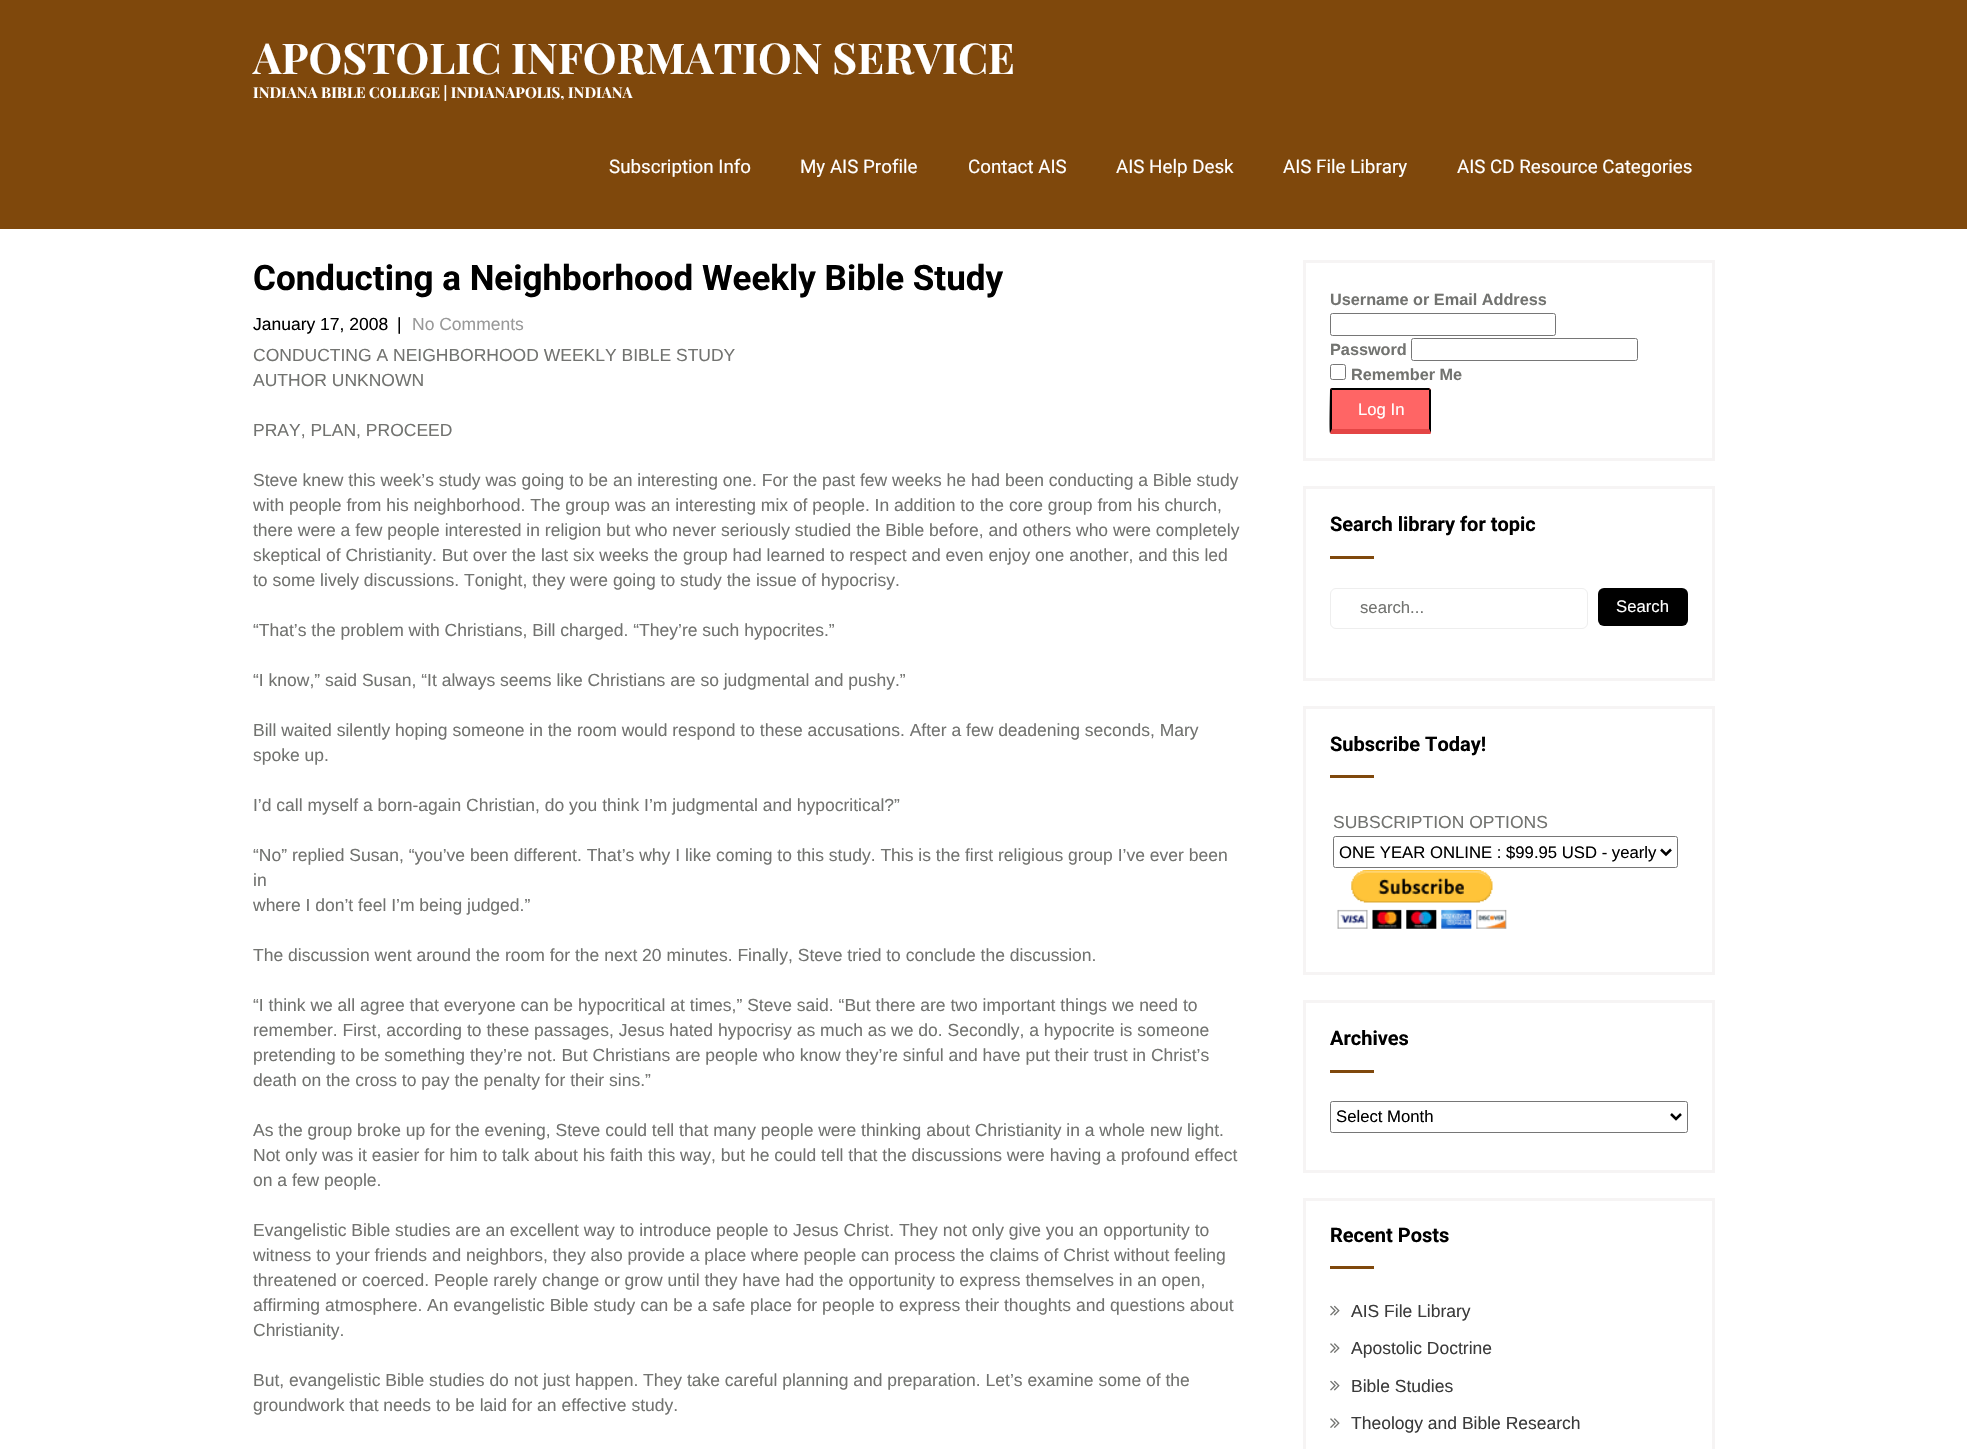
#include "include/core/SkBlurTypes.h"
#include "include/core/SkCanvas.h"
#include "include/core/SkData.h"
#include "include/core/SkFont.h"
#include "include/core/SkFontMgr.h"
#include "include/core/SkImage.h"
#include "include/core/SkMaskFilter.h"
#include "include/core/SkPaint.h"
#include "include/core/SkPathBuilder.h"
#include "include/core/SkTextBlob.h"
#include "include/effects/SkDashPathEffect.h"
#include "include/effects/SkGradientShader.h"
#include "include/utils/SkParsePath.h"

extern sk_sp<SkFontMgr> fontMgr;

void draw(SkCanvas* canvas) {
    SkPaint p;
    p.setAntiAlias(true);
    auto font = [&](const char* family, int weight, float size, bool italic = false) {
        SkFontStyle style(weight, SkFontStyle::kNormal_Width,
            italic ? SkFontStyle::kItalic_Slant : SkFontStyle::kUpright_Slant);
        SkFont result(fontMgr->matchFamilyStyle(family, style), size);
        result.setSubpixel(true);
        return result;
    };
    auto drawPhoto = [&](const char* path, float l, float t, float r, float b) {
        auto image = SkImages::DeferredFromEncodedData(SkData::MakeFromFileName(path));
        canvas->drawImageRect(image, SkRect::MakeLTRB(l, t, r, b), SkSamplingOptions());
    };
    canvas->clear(0xFFFFFFFF);
    p.setColor(0xFF7F480C);
    canvas->drawRect(SkRect::MakeLTRB(0, 0, 1967, 229), p);
    auto font1 = font("Playfair Display", 700, 42.5f);
    p.setColor(0xFFFFFFFF);
    canvas->drawString("APOSTOLIC INFORMATION SERVICE", 253, 74, font1, p);
    auto font2 = font("Playfair Display", 700, 15);
    canvas->drawString("INDIANA BIBLE COLLEGE | INDIANAPOLIS, INDIANA", 253, 98, font2, p);
    auto font3 = font("Roboto", 400, 18.75f);
    {
        const struct { const char* s; float x, y; } items[] = {
            {"Subscription Info", 609, 173},
            {"My AIS Profile", 800, 173},
            {"Contact AIS", 968, 173},
            {"AIS Help Desk", 1116, 173},
            {"AIS File Library", 1283, 173},
            {"AIS CD Resource Categories", 1457, 173},
        };
        for (auto [s, x, y] : items) {
            canvas->drawString(s, x, y, font3, p);
        }
    }
    auto font4 = font("Roboto", 700, 35);
    p.setColor(0xFF000000);
    canvas->drawString("Conducting a Neighborhood Weekly Bible Study", 253, 290, font4, p);
    auto font5 = font("Liberation Sans", 400, 17.5f);
    canvas->drawString("January 17, 2008", 253, 330, font5, p);
    canvas->drawString("|", 397, 330, font5, p);
    p.setColor(0xFF999999);
    canvas->drawString("No Comments", 412, 330, font5, p);
    p.setColor(0xFF727370);
    {
        const struct { const char* s; float x, y; } items[] = {
            {"CONDUCTING A NEIGHBORHOOD WEEKLY BIBLE STUDY", 253, 361},
            {"AUTHOR UNKNOWN", 253, 386},
            {"PRAY, PLAN, PROCEED", 253, 436},
            {"Steve knew this week’s study was going to be an interesting one. For the past few weeks he had been conducting a Bible study", 253, 486},
            {"with people from his neighborhood. The group was an interesting mix of people. In addition to the core group from his church,", 253, 511},
            {"there were a few people interested in religion but who never seriously studied the Bible before, and others who were completely", 253, 536},
            {"skeptical of Christianity. But over the last six weeks the group had learned to respect and even enjoy one another, and this led", 253, 561},
            {"to some lively discussions. Tonight, they were going to study the issue of hypocrisy.", 253, 586},
            {"“That’s the problem with Christians, Bill charged. “They’re such hypocrites.”", 253, 636},
            {"“I know,” said Susan, “It always seems like Christians are so judgmental and pushy.”", 253, 686},
            {"Bill waited silently hoping someone in the room would respond to these accusations. After a few deadening seconds, Mary", 253, 736},
            {"spoke up.", 253, 761},
            {"I’d call myself a born-again Christian, do you think I’m judgmental and hypocritical?”", 253, 811},
            {"“No” replied Susan, “you’ve been different. That’s why I like coming to this study. This is the first religious group I’ve ever been", 253, 861},
            {"in", 253, 886},
            {"where I don’t feel I’m being judged.”", 253, 911},
            {"The discussion went around the room for the next 20 minutes. Finally, Steve tried to conclude the discussion.", 253, 961},
            {"“I think we all agree that everyone can be hypocritical at times,” Steve said. “But there are two important things we need to", 253, 1011},
            {"remember. First, according to these passages, Jesus hated hypocrisy as much as we do. Secondly, a hypocrite is someone", 253, 1036},
            {"pretending to be something they’re not. But Christians are people who know they’re sinful and have put their trust in Christ’s", 253, 1061},
            {"death on the cross to pay the penalty for their sins.”", 253, 1086},
            {"As the group broke up for the evening, Steve could tell that many people were thinking about Christianity in a whole new light.", 253, 1136},
            {"Not only was it easier for him to talk about his faith this way, but he could tell that the discussions were having a profound effect", 253, 1161},
            {"on a few people.", 253, 1186},
            {"Evangelistic Bible studies are an excellent way to introduce people to Jesus Christ. They not only give you an opportunity to", 253, 1236},
            {"witness to your friends and neighbors, they also provide a place where people can process the claims of Christ without feeling", 253, 1261},
            {"threatened or coerced. People rarely change or grow until they have had the opportunity to express themselves in an open,", 253, 1286},
            {"affirming atmosphere. An evangelistic Bible study can be a safe place for people to express their thoughts and questions about", 253, 1311},
            {"Christianity.", 253, 1336},
            {"But, evangelistic Bible studies do not just happen. They take careful planning and preparation. Let’s examine some of the", 253, 1386},
            {"groundwork that needs to be laid for an effective study.", 253, 1411},
        };
        for (auto [s, x, y] : items) {
            canvas->drawString(s, x, y, font5, p);
        }
    }
    p.setStyle(SkPaint::kStroke_Style);
    p.setStrokeWidth(3);
    p.setColor(0xFFF6F4F4);
    canvas->drawRect(SkRect::MakeLTRB(1304.5f, 261.5f, 1713.5f, 459.5f), p);
    auto font6 = font("Liberation Sans", 700, 16.25f);
    p.setStyle(SkPaint::kFill_Style);
    p.setColor(0xFF727370);
    canvas->drawString("Username or Email Address", 1330, 305, font6, p);
    p.setStyle(SkPaint::kStroke_Style);
    p.setStrokeWidth(1);
    p.setColor(0xFF767676);
    canvas->drawRoundRect(SkRect::MakeLTRB(1330.5f, 313.5f, 1555.5f, 335.5f), 2, 2, p);
    p.setStyle(SkPaint::kFill_Style);
    p.setColor(0xFF727370);
    canvas->drawString("Password", 1330, 355, font6, p);
    p.setStyle(SkPaint::kStroke_Style);
    p.setColor(0xFF767676);
    canvas->drawRoundRect(SkRect::MakeLTRB(1411.5f, 338.5f, 1637.5f, 360.5f), 2, 2, p);
    canvas->drawRoundRect(SkRect::MakeLTRB(1330.5f, 364.5f, 1345.5f, 379.5f), 2, 2, p);
    p.setStyle(SkPaint::kFill_Style);
    p.setColor(0xFF727370);
    canvas->drawString("Remember Me", 1351, 380, font6, p);
    p.setColor(0xFFFF6565);
    canvas->drawRoundRect(SkRect::MakeLTRB(1330, 388, 1431, 434), 2.5f, 2.5f, p);
    p.setColor(0xFF000000);
    canvas->drawPath(SkPathBuilder().moveTo(1332, 388).lineTo(1331, 388).lineTo(1332, 390).lineTo(1429, 390).lineTo(1430, 389).lineTo(1429, 388).close().detach(), p);
    canvas->drawPath(SkPathBuilder().moveTo(1431, 433).lineTo(1431, 390).lineTo(1430, 389).lineTo(1429, 390).lineTo(1429, 429).close().detach(), p);
    p.setColor(0xFFE44545);
    canvas->drawPath(SkPathBuilder().moveTo(1331, 434).lineTo(1330, 433).lineTo(1332, 429).lineTo(1429, 429).lineTo(1431, 433).lineTo(1430, 434).close().detach(), p);
    p.setColor(0xFF000000);
    canvas->drawPath(SkPathBuilder().moveTo(1332, 390).lineTo(1331, 388).lineTo(1330, 390).cubicTo(1330, 393, 1329, 431, 1330, 433).lineTo(1332, 429).close().detach(), p);
    auto font7 = font("Liberation Sans", 400, 16.7f);
    p.setColor(0xFFFFFFFF);
    canvas->drawString("Log In", 1358, 415, font7, p);
    p.setStyle(SkPaint::kStroke_Style);
    p.setStrokeWidth(3);
    p.setColor(0xFFF6F4F4);
    canvas->drawRect(SkRect::MakeLTRB(1304.5f, 487.5f, 1713.5f, 679.5f), p);
    auto font8 = font("Roboto", 700, 20);
    p.setStyle(SkPaint::kFill_Style);
    p.setColor(0xFF000000);
    canvas->drawString("Search library for topic", 1330, 531, font8, p);
    p.setColor(0xFF7F480C);
    canvas->drawRect(SkRect::MakeLTRB(1330, 556, 1374, 559), p);
    p.setStyle(SkPaint::kStroke_Style);
    p.setStrokeWidth(1);
    p.setColor(0xFFEEEEEE);
    canvas->drawRoundRect(SkRect::MakeLTRB(1330.5f, 588.5f, 1587.5f, 628.5f), 5.5f, 5.5f, p);
    p.setStyle(SkPaint::kFill_Style);
    p.setColor(0xFF727370);
    canvas->drawString("search...", 1360, 613, font7, p);
    p.setColor(0xFF000000);
    canvas->drawRoundRect(SkRect::MakeLTRB(1598, 588, 1688, 626), 6, 6, p);
    p.setColor(0xFFFFFFFF);
    canvas->drawString("Search", 1616, 612, font7, p);
    p.setStyle(SkPaint::kStroke_Style);
    p.setStrokeWidth(3);
    p.setColor(0xFFF6F4F4);
    canvas->drawRect(SkRect::MakeLTRB(1304.5f, 707.5f, 1713.5f, 973.5f), p);
    p.setStyle(SkPaint::kFill_Style);
    p.setColor(0xFF000000);
    canvas->drawString("Subscribe Today!", 1330, 751, font8, p);
    p.setColor(0xFF7F480C);
    canvas->drawRect(SkRect::MakeLTRB(1330, 775, 1374, 778), p);
    p.setColor(0xFF727370);
    canvas->drawString("SUBSCRIPTION OPTIONS", 1333, 828, font5, p);
    p.setStyle(SkPaint::kStroke_Style);
    p.setStrokeWidth(1);
    p.setColor(0xFF767676);
    canvas->drawRoundRect(SkRect::MakeLTRB(1333.5f, 836.5f, 1677.5f, 867.5f), 2, 2, p);
    p.setStrokeWidth(2.5f);
    p.setColor(0xFF000000);
    canvas->drawPath(SkPathBuilder().moveTo(1661, 849.5f).lineTo(1666, 854.5f).lineTo(1671, 849.5f).detach(), p);
    p.setStyle(SkPaint::kFill_Style);
    canvas->drawString("ONE YEAR ONLINE : $99.95 USD - yearly", 1339, 858, font7, p);
    drawPhoto("media/1.png", 1337, 870, 1507, 929);
    p.setStyle(SkPaint::kStroke_Style);
    p.setStrokeWidth(3);
    p.setColor(0xFFF6F4F4);
    canvas->drawRect(SkRect::MakeLTRB(1304.5f, 1001.5f, 1713.5f, 1171.5f), p);
    p.setStyle(SkPaint::kFill_Style);
    p.setColor(0xFF000000);
    canvas->drawString("Archives", 1330, 1045, font8, p);
    p.setColor(0xFF7F480C);
    canvas->drawRect(SkRect::MakeLTRB(1330, 1070, 1374, 1073), p);
    p.setStyle(SkPaint::kStroke_Style);
    p.setStrokeWidth(1);
    p.setColor(0xFF767676);
    canvas->drawRoundRect(SkRect::MakeLTRB(1330.5f, 1101.5f, 1687.5f, 1132.5f), 2, 2, p);
    p.setStrokeWidth(2.5f);
    p.setColor(0xFF000000);
    canvas->drawPath(SkPathBuilder().moveTo(1671, 1114).lineTo(1676, 1119).lineTo(1681, 1114).detach(), p);
    p.setStyle(SkPaint::kFill_Style);
    canvas->drawString("Select Month", 1336, 1122, font7, p);
    p.setStyle(SkPaint::kStroke_Style);
    p.setStrokeWidth(3);
    p.setColor(0xFFF6F4F4);
    canvas->drawRect(SkRect::MakeLTRB(1304.5f, 1199.5f, 1713.5f, 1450.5f), p);
    p.setStyle(SkPaint::kFill_Style);
    p.setColor(0xFF000000);
    canvas->drawString("Recent Posts", 1330, 1242, font8, p);
    p.setColor(0xFF7F480C);
    canvas->drawRect(SkRect::MakeLTRB(1330, 1266, 1374, 1269), p);
    drawPhoto("media/2.png", 1330, 1305, 1340, 1316);
    p.setColor(0xFF3B3B3B);
    canvas->drawString("AIS File Library", 1351, 1317, font5, p);
    drawPhoto("media/3.png", 1330, 1343, 1340, 1353);
    canvas->drawString("Apostolic Doctrine", 1351, 1354, font5, p);
    drawPhoto("media/2.png", 1330, 1380, 1340, 1391);
    canvas->drawString("Bible Studies", 1351, 1392, font5, p);
    drawPhoto("media/3.png", 1330, 1418, 1340, 1428);
    canvas->drawString("Theology and Bible Research", 1351, 1429, font5, p);
}
